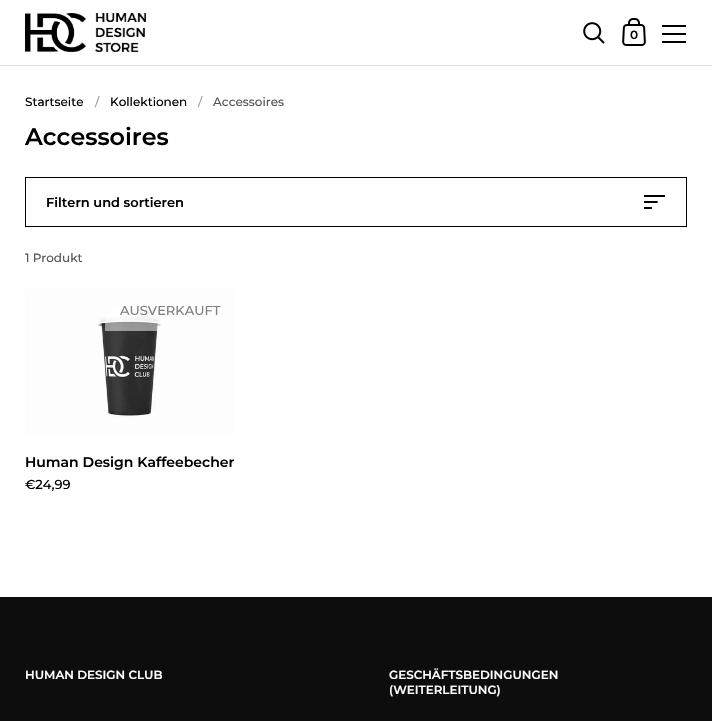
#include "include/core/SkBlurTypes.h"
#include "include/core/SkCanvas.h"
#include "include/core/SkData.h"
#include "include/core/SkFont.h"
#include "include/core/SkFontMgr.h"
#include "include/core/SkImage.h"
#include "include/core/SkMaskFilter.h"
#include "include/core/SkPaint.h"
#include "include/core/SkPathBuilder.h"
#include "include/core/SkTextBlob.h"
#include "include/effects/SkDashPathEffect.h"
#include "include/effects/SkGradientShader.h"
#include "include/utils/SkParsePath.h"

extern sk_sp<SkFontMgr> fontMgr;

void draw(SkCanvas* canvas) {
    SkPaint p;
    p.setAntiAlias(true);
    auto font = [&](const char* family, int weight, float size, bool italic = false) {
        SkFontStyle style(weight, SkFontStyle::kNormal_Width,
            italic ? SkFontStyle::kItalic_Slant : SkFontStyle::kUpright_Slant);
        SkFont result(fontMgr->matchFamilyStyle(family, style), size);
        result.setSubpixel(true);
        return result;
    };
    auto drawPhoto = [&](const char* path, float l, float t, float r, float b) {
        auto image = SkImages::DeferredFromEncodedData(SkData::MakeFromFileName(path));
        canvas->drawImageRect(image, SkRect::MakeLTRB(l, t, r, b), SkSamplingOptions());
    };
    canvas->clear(0xFFFFFFFF);
    p.setColor(0xFFE0E0E0);
    canvas->drawRect(SkRect::MakeLTRB(0, 65, 712, 66), p);
    drawPhoto("media/1.png", 25, 13, 146, 52);
    drawPhoto("media/2.png", 583, 22, 605, 44);
    drawPhoto("media/3.png", 622, 18, 646, 46);
    auto font1 = font("Montserrat", 600, 12);
    p.setColor(0xFF000000);
    canvas->drawString("0", 630, 39, font1, p);
    {
        const struct { float l, t, r, b; SkColor color; } items[] = {
            {662, 25, 686, 27, 0xFF000000},
            {662, 33, 686, 35, 0xFF000000},
            {662, 41, 686, 43, 0xFF000000},
        };
        for (auto [l, t, r, b, color] : items) {
            p.setColor(color);
            canvas->drawRect(SkRect::MakeLTRB(l, t, r, b), p);
        }
    }
    auto font2 = font("Montserrat", 500, 12);
    canvas->drawString("Startseite", 25, 106, font2, p);
    p.setColor(0xFFA3A3A3);
    canvas->drawString("/", 95, 106, font2, p);
    p.setColor(0xFF000000);
    canvas->drawString("Kollektionen", 110, 106, font2, p);
    p.setColor(0xFFA3A3A3);
    canvas->drawString("/", 198, 106, font2, p);
    p.setColor(0xFF575757);
    canvas->drawString("Accessoires", 213, 106, font2, p);
    auto font3 = font("Montserrat", 600, 23.75f);
    p.setColor(0xFF000000);
    canvas->drawString("Accessoires", 25, 145, font3, p);
    p.setStyle(SkPaint::kStroke_Style);
    p.setStrokeWidth(1);
    canvas->drawRect(SkRect::MakeLTRB(25.5f, 177.5f, 686.5f, 226.5f), p);
    auto font4 = font("Montserrat", 600, 13);
    p.setStyle(SkPaint::kFill_Style);
    canvas->drawString("Filtern und sortieren", 46, 207, font4, p);
    drawPhoto("media/4.png", 644, 195, 665, 209);
    p.setColor(0xFF575757);
    canvas->drawString("1 Produkt", 25, 262, font2, p);
    drawPhoto("media/5.png", 25, 289, 235, 436);
    p.setColor(0x80FFFFFF);
    canvas->drawRect(SkRect::MakeLTRB(105, 308, 162, 331), p);
    auto font5 = font("Montserrat", 500, 13);
    p.setColor(0xFF7F7F7F);
    canvas->drawString("AUSVERKAUFT", 120, 315, font5, p);
    auto font6 = font("Montserrat", 600, 14);
    p.setColor(0xFF000000);
    canvas->drawString("Human Design Kaffeebecher", 25, 467, font6, p);
    canvas->drawString("€24,99", 25, 489, font5, p);
    p.setColor(0xFF0D0D0D);
    canvas->drawRect(SkRect::MakeLTRB(0, 597, 712, 721), p);
    auto font7 = font("Montserrat", 600, 11.9f);
    p.setColor(0xFFFFFFFF);
    {
        const struct { const char* s; float x, y; } items[] = {
            {"HUMAN DESIGN CLUB", 25, 679},
            {"GESCHÄFTSBEDINGUNGEN", 389, 679},
            {"(WEITERLEITUNG)", 389, 694},
        };
        for (auto [s, x, y] : items) {
            canvas->drawString(s, x, y, font7, p);
        }
    }
}
